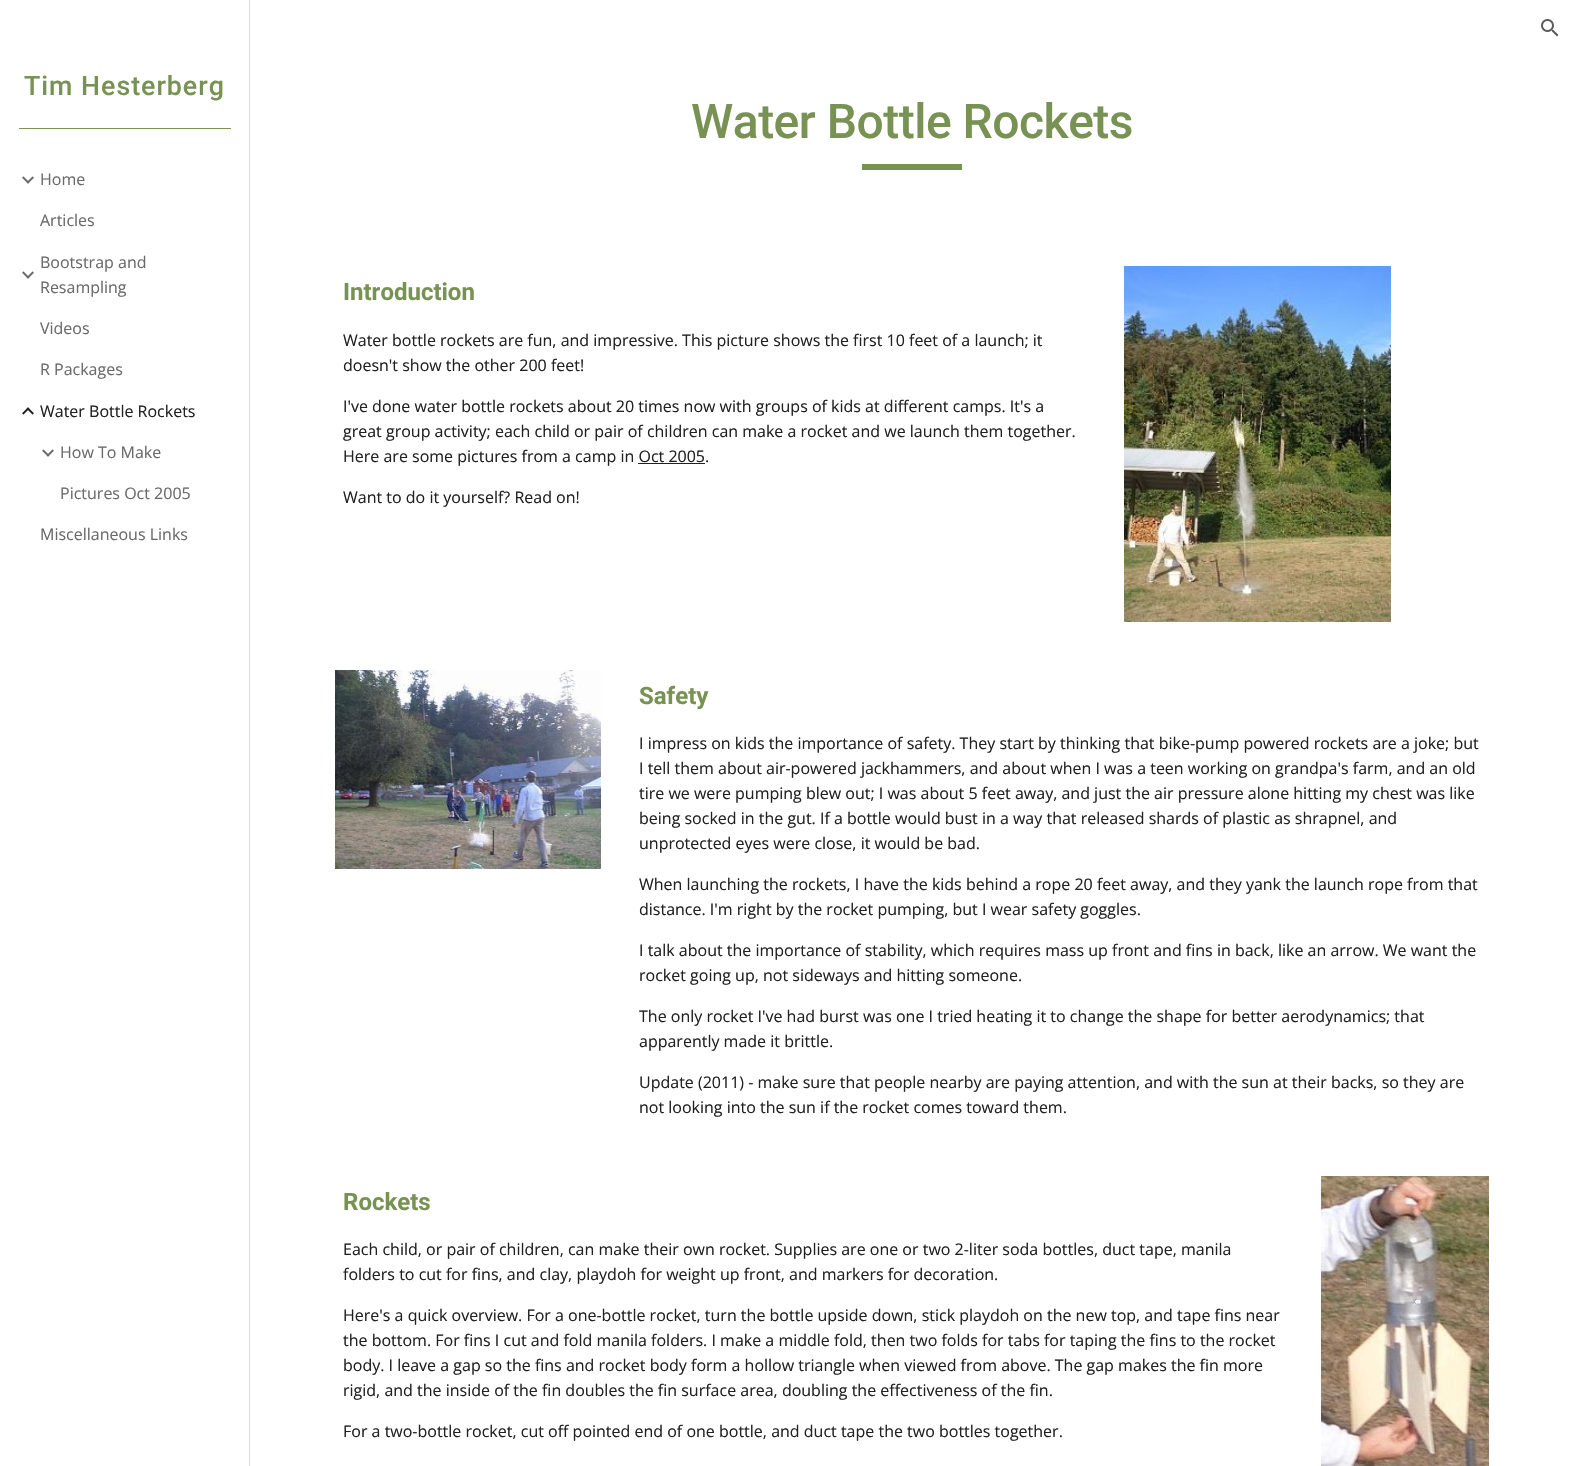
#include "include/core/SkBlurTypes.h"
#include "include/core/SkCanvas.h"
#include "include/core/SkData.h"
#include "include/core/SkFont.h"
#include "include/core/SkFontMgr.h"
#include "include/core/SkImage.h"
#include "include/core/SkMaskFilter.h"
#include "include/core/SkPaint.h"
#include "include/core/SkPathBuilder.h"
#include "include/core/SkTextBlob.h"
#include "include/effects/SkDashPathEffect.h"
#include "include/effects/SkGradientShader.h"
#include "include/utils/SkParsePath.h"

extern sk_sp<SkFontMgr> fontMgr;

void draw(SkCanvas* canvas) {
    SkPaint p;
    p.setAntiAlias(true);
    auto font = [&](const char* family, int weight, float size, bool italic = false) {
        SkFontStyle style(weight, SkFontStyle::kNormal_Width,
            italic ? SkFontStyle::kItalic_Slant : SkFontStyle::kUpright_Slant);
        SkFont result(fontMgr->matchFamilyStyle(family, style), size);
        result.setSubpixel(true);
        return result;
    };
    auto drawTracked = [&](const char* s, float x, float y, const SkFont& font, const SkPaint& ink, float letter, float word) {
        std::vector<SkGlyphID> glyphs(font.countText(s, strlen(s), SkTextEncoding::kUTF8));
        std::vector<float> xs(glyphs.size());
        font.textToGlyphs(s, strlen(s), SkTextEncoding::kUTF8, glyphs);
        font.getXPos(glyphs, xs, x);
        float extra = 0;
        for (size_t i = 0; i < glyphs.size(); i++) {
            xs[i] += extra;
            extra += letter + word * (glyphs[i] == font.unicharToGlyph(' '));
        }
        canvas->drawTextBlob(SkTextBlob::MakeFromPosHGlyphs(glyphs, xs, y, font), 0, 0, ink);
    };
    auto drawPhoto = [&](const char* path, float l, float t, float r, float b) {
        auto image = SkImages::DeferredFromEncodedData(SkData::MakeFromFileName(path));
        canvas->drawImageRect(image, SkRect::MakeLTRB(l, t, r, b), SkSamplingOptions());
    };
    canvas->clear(0xFFFFFFFF);
    drawPhoto("media/1.png", 1541, 19, 1559, 37);
    p.setColor(0xFFD9D9D9);
    canvas->drawRect(SkRect::MakeLTRB(249, 0, 250, 1466), p);
    auto font1 = font("Roboto", 500, 26.75f);
    p.setColor(0xFF789254);
    drawTracked("Tim Hesterberg", 24, 95, font1, p, 1, 0);
    canvas->drawRect(SkRect::MakeLTRB(19, 128, 231, 129), p);
    drawPhoto("media/2.png", 22, 176, 34, 184);
    auto font2 = font("Open Sans", 400, 16);
    p.setColor(0xFF6A6A6A);
    canvas->drawString("Home", 40, 185, font2, p);
    canvas->drawString("Articles", 40, 226, font2, p);
    drawPhoto("media/2.png", 22, 271, 34, 279);
    {
        const struct { const char* s; float x, y; } items[] = {
            {"Bootstrap and", 40, 268},
            {"Resampling", 40, 293},
            {"Videos", 40, 334},
            {"R Packages", 40, 375},
        };
        for (auto [s, x, y] : items) {
            canvas->drawString(s, x, y, font2, p);
        }
    }
    drawPhoto("media/3.png", 22, 407, 34, 415);
    p.setColor(0xFF212121);
    canvas->drawString("Water Bottle Rockets", 40, 417, font2, p);
    drawPhoto("media/2.png", 42, 449, 54, 457);
    p.setColor(0xFF6A6A6A);
    {
        const struct { const char* s; float x, y; } items[] = {
            {"How To Make", 60, 458},
            {"Pictures Oct 2005", 60, 499},
            {"Miscellaneous Links", 40, 540},
        };
        for (auto [s, x, y] : items) {
            canvas->drawString(s, x, y, font2, p);
        }
    }
    auto font3 = font("Roboto", 500, 48);
    p.setColor(0xFF789254);
    drawTracked("Water Bottle Rockets", 691, 138, font3, p, -0.5f, 0);
    canvas->drawRect(SkRect::MakeLTRB(862, 164, 962, 170), p);
    auto font4 = font("Roboto", 700, 24);
    canvas->drawString("Introduction", 343, 300, font4, p);
    p.setColor(0xFF212121);
    {
        const struct { const char* s; float x, y; } items[] = {
            {"Water bottle rockets are fun, and impressive. This picture shows the first 10 feet of a launch; it", 343, 346},
            {"doesn't show the other 200 feet!", 343, 371},
            {"I've done water bottle rockets about 20 times now with groups of kids at different camps. It's a", 343, 412},
            {"great group activity; each child or pair of children can make a rocket and we launch them together.", 343, 437},
            {"Here are some pictures from a camp in Oct 2005.", 343, 462},
        };
        for (auto [s, x, y] : items) {
            canvas->drawString(s, x, y, font2, p);
        }
    }
    canvas->drawRect(SkRect::MakeLTRB(638, 463, 705, 464), p);
    canvas->drawString("Want to do it yourself? Read on!", 343, 503, font2, p);
    drawPhoto("media/4.png", 1124, 266, 1391, 622);
    drawPhoto("media/5.png", 335, 670, 601, 869);
    p.setColor(0xFF789254);
    canvas->drawString("Safety", 639, 704, font4, p);
    p.setColor(0xFF212121);
    {
        const struct { const char* s; float x, y; } items[] = {
            {"I impress on kids the importance of safety. They start by thinking that bike-pump powered rockets are a joke; but", 639, 749},
            {"I tell them about air-powered jackhammers, and about when I was a teen working on grandpa's farm, and an old", 639, 774},
            {"tire we were pumping blew out; I was about 5 feet away, and just the air pressure alone hitting my chest was like", 639, 799},
            {"being socked in the gut. If a bottle would bust in a way that released shards of plastic as shrapnel, and", 639, 824},
            {"unprotected eyes were close, it would be bad.", 639, 849},
            {"When launching the rockets, I have the kids behind a rope 20 feet away, and they yank the launch rope from that", 639, 890},
            {"distance. I'm right by the rocket pumping, but I wear safety goggles.", 639, 915},
            {"I talk about the importance of stability, which requires mass up front and fins in back, like an arrow. We want the", 639, 956},
            {"rocket going up, not sideways and hitting someone.", 639, 981},
            {"The only rocket I've had burst was one I tried heating it to change the shape for better aerodynamics; that", 639, 1022},
            {"apparently made it brittle.", 639, 1047},
            {"Update (2011) - make sure that people nearby are paying attention, and with the sun at their backs, so they are", 639, 1088},
            {"not looking into the sun if the rocket comes toward them.", 639, 1113},
        };
        for (auto [s, x, y] : items) {
            canvas->drawString(s, x, y, font2, p);
        }
    }
    p.setColor(0xFF789254);
    canvas->drawString("Rockets", 343, 1210, font4, p);
    p.setColor(0xFF212121);
    {
        const struct { const char* s; float x, y; } items[] = {
            {"Each child, or pair of children, can make their own rocket. Supplies are one or two 2-liter soda bottles, duct tape, manila", 343, 1255},
            {"folders to cut for fins, and clay, playdoh for weight up front, and markers for decoration.", 343, 1280},
            {"Here's a quick overview. For a one-bottle rocket, turn the bottle upside down, stick playdoh on the new top, and tape fins near", 343, 1321},
            {"the bottom. For fins I cut and fold manila folders. I make a middle fold, then two folds for tabs for taping the fins to the rocket", 343, 1346},
            {"body. I leave a gap so the fins and rocket body form a hollow triangle when viewed from above. The gap makes the fin more", 343, 1371},
            {"rigid, and the inside of the fin doubles the fin surface area, doubling the effectiveness of the fin.", 343, 1396},
            {"For a two-bottle rocket, cut off pointed end of one bottle, and duct tape the two bottles together.", 343, 1437},
        };
        for (auto [s, x, y] : items) {
            canvas->drawString(s, x, y, font2, p);
        }
    }
    drawPhoto("media/6.png", 1321, 1176, 1489, 1466);
}
